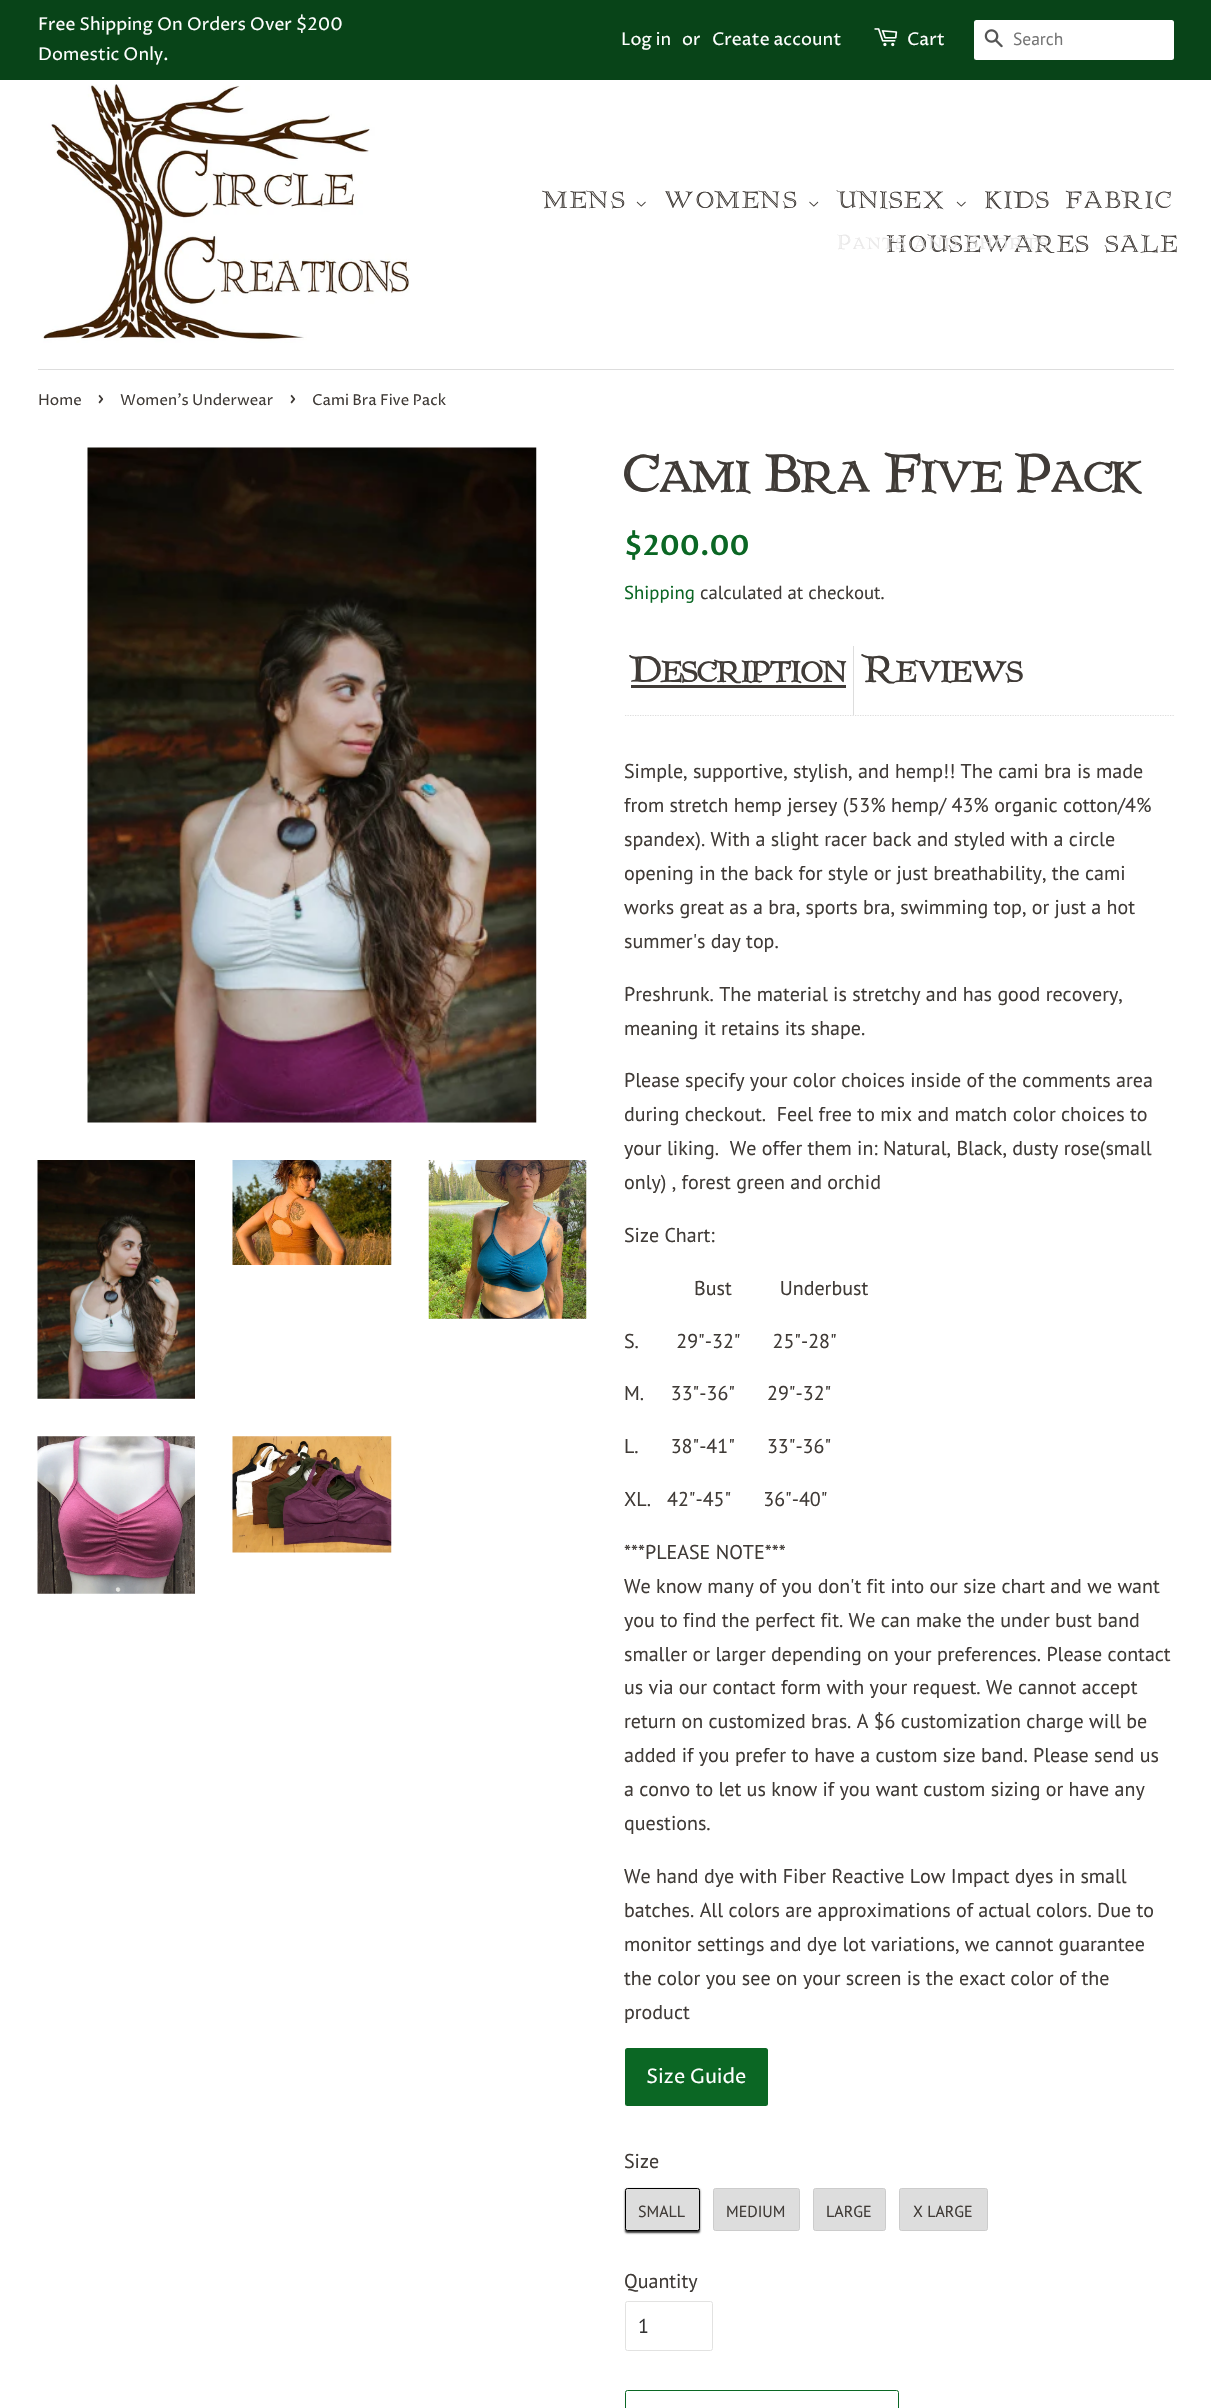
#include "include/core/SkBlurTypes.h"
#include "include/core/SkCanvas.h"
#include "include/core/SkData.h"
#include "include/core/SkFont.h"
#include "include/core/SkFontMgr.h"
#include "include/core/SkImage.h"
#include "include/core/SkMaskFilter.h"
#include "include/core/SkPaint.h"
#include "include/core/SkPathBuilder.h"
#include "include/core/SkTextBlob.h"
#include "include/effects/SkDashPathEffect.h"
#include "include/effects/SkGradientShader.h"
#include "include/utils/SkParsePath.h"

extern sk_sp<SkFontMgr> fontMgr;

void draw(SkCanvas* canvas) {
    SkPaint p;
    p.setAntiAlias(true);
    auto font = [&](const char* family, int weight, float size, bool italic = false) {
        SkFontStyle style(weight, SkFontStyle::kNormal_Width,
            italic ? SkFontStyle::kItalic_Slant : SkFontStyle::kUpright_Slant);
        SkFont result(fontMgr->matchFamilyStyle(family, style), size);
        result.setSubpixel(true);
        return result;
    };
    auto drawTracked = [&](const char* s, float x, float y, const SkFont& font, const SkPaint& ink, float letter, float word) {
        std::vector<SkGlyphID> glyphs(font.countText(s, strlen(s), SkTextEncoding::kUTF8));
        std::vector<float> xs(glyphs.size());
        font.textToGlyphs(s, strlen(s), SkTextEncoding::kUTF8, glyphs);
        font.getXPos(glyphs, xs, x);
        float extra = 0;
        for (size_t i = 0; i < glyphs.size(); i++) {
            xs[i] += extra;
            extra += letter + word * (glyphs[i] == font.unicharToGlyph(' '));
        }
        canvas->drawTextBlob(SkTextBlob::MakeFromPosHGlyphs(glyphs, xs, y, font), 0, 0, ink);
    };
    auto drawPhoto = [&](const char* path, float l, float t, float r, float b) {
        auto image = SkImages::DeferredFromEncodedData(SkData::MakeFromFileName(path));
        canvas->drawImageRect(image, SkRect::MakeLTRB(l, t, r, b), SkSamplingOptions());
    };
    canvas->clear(0xFFFFFFFF);
    p.setColor(0xFF084418);
    canvas->drawRect(SkRect::MakeLTRB(0, 0, 1211, 80), p);
    auto font1 = font("Proza Libre", 400, 17.5f);
    p.setColor(0xFFFFFFFF);
    {
        const struct { const char* s; float x, y; } items[] = {
            {"Free Shipping On Orders Over $200", 38, 30},
            {"Domestic Only.", 38, 60},
            {"Log in", 621, 45},
            {"or", 682, 45},
            {"Create account", 712, 45},
        };
        for (auto [s, x, y] : items) {
            canvas->drawString(s, x, y, font1, p);
        }
    }
    drawPhoto("media/1.png", 874, 28, 898, 47);
    canvas->drawString("Cart", 907, 45, font1, p);
    canvas->drawRoundRect(SkRect::MakeLTRB(974, 20, 1174, 60), 2.5f, 2.5f, p);
    drawPhoto("media/2.png", 984, 29, 1003, 48);
    auto font2 = font("PT Sans", 400, 17.5f);
    p.setColor(0xFF757575);
    canvas->drawString("Search", 1013, 45, font2, p);
    p.setColor(0xFFDDDDDD);
    canvas->drawRect(SkRect::MakeLTRB(38, 369, 1174, 370), p);
    drawPhoto("media/3.png", 43, 84, 410, 343);
    auto font3 = font("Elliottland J", 400, 18);
    p.setColor(0xFF403B37);
    drawTracked("MEN'S", 544, 208, font3, p, 2, 0);
    drawPhoto("media/4.png", 636, 201, 646, 207);
    drawTracked("WOMEN'S", 665, 208, font3, p, 2, 0);
    drawPhoto("media/5.png", 809, 201, 819, 207);
    drawTracked("UNISEX", 838, 208, font3, p, 2, 0);
    drawPhoto("media/4.png", 956, 201, 966, 207);
    drawTracked("HOUSEWARES", 887, 252, font3, p, 2, 0);
    auto font4 = font("Elliottland J", 400, 15.25f);
    p.setColor(0xFFE7E6E6);
    drawTracked("Pants and Shorts", 838, 249, font4, p, 2, 0);
    p.setColor(0xFF403B37);
    {
        const struct { const char* s; float x, y; } items[] = {
            {"KIDS", 986, 208},
            {"FABRIC", 1066, 208},
            {"SALE", 1106, 252},
        };
        for (auto [s, x, y] : items) {
            drawTracked(s, x, y, font3, p, 2, 0);
        }
    }
    auto font5 = font("Proza Libre", 400, 15);
    canvas->drawString("Home", 38, 405, font5, p);
    auto font6 = font("Proza Libre", 400, 21);
    canvas->drawString("›", 97, 405, font6, p);
    canvas->drawString("Women's Underwear", 120, 405, font5, p);
    canvas->drawString("›", 289, 405, font6, p);
    canvas->drawString("Cami Bra Five Pack", 312, 405, font5, p);
    drawPhoto("media/6.png", 87, 447, 537, 1123);
    drawPhoto("media/7.png", 37, 1160, 195, 1399);
    drawPhoto("media/8.png", 232, 1160, 392, 1265);
    drawPhoto("media/9.png", 428, 1160, 587, 1319);
    drawPhoto("media/10.png", 37, 1436, 195, 1594);
    drawPhoto("media/11.png", 232, 1436, 392, 1553);
    auto font7 = font("Elliottland J", 700, 40);
    canvas->drawString("Cami Bra Five Pack", 624, 492, font7, p);
    auto font8 = font("Proza Libre", 600, 28);
    p.setColor(0xFF0B6724);
    canvas->drawString("$200.00", 624, 555, font8, p);
    auto font9 = font("PT Sans", 400, 18.75f);
    canvas->drawString("Shipping", 624, 599, font9, p);
    p.setColor(0xFF403B37);
    canvas->drawString("calculated at checkout.", 700, 599, font9, p);
    p.setStyle(SkPaint::kStroke_Style);
    p.setStrokeWidth(1.2f);
    p.setColor(0xFFDDDDDD);
    p.setPathEffect(SkDashPathEffect::Make({{1.25f, 1.25f}}, 0));
    canvas->drawPath(SkPathBuilder().moveTo(625, 715.5f).lineTo(1174, 715.5f).detach(), p);
    p.setPathEffect(nullptr);
    p.setStyle(SkPaint::kFill_Style);
    canvas->drawRect(SkRect::MakeLTRB(853, 646, 854, 715), p);
    auto font10 = font("Elliottland J", 700, 27.5f);
    p.setColor(0xFF403B37);
    canvas->drawString("Description", 631, 682, font10, p);
    canvas->drawRect(SkRect::MakeLTRB(631, 685, 846, 688), p);
    canvas->drawString("Reviews", 865, 682, font10, p);
    auto font11 = font("PT Sans", 400, 20);
    {
        const struct { const char* s; float x, y; } items[] = {
            {"Simple, supportive, stylish, and hemp!! The cami bra is made", 624, 778},
            {"from stretch hemp jersey (53% hemp/ 43% organic cotton/4%", 624, 812},
            {"spandex). With a slight racer back and styled with a circle", 624, 846},
            {"opening in the back for style or just breathability, the cami", 624, 880},
            {"works great as a bra, sports bra, swimming top, or just a hot", 624, 914},
            {"summer's day top.", 624, 948},
            {"Preshrunk. The material is stretchy and has good recovery,", 624, 1001},
            {"meaning it retains its shape.", 624, 1035},
            {"Please specify your color choices inside of the comments area", 624, 1087},
            {"during checkout.  Feel free to mix and match color choices to", 624, 1121},
            {"your liking.  We offer them in: Natural, Black, dusty rose(small", 624, 1155},
            {"only) , forest green and orchid", 624, 1189},
            {"Size Chart:", 624, 1242},
            {"Bust         Underbust", 694, 1295},
            {"S.       29\"-32\"      25\"-28\"", 624, 1348},
            {"M.     33\"-36\"      29\"-32\"", 624, 1400},
            {"L.      38\"-41\"      33\"-36\"", 624, 1453},
            {"XL.   42\"-45\"      36\"-40\"", 624, 1506},
            {"***PLEASE NOTE***", 624, 1559},
            {"We know many of you don't fit into our size chart and we want", 624, 1593},
            {"you to find the perfect fit. We can make the under bust band", 624, 1627},
            {"smaller or larger depending on your preferences. Please contact", 624, 1661},
            {"us via our contact form with your request. We cannot accept", 624, 1694},
            {"return on customized bras. A $6 customization charge will be", 624, 1728},
            {"added if you prefer to have a custom size band. Please send us", 624, 1762},
            {"a convo to let us know if you want custom sizing or have any", 624, 1796},
            {"questions.", 624, 1830},
            {"We hand dye with Fiber Reactive Low Impact dyes in small", 624, 1883},
            {"batches. All colors are approximations of actual colors. Due to", 624, 1917},
            {"monitor settings and dye lot variations, we cannot guarantee", 624, 1951},
            {"the color you see on your screen is the exact color of the", 624, 1985},
            {"product", 624, 2019},
        };
        for (auto [s, x, y] : items) {
            canvas->drawString(s, x, y, font11, p);
        }
    }
    p.setColor(0xFF0B6724);
    canvas->drawRoundRect(SkRect::MakeLTRB(625, 2048, 768, 2106), 2.5f, 2.5f, p);
    auto font12 = font("Proza Libre", 400, 20);
    p.setColor(0xFFFFFFFF);
    canvas->drawString("Size Guide", 646, 2083, font12, p);
    p.setColor(0xFF403B37);
    canvas->drawString("Size", 624, 2168, font11, p);
    p.setColor(0xCC000000);
    p.setMaskFilter(SkMaskFilter::MakeBlur(kNormal_SkBlurStyle, 1));
    canvas->drawRoundRect(SkRect::MakeLTRB(625, 2189, 700, 2233), 2.5f, 2.5f, p);
    p.setMaskFilter(nullptr);
    p.setColor(0xFFDDDDDD);
    canvas->drawRoundRect(SkRect::MakeLTRB(625.5f, 2188.5f, 699.5f, 2230.5f), 2, 2, p);
    p.setStyle(SkPaint::kStroke_Style);
    p.setStrokeWidth(1);
    p.setColor(0xFF000000);
    canvas->drawRoundRect(SkRect::MakeLTRB(625.5f, 2188.5f, 699.5f, 2230.5f), 2, 2, p);
    auto font13 = font("PT Sans", 400, 16);
    p.setStyle(SkPaint::kFill_Style);
    p.setColor(0xFF403B37);
    canvas->drawString("SMALL", 638, 2217, font13, p);
    p.setColor(0xFFDDDDDD);
    canvas->drawRoundRect(SkRect::MakeLTRB(713.5f, 2188.5f, 799.5f, 2230.5f), 2, 2, p);
    p.setStyle(SkPaint::kStroke_Style);
    p.setColor(0xFFCCCCCC);
    canvas->drawRoundRect(SkRect::MakeLTRB(713.5f, 2188.5f, 799.5f, 2230.5f), 2, 2, p);
    p.setStyle(SkPaint::kFill_Style);
    p.setColor(0xFF403B37);
    canvas->drawString("MEDIUM", 726, 2217, font13, p);
    p.setColor(0xFFDDDDDD);
    canvas->drawRoundRect(SkRect::MakeLTRB(813.5f, 2188.5f, 885.5f, 2230.5f), 2, 2, p);
    p.setStyle(SkPaint::kStroke_Style);
    p.setColor(0xFFCCCCCC);
    canvas->drawRoundRect(SkRect::MakeLTRB(813.5f, 2188.5f, 885.5f, 2230.5f), 2, 2, p);
    p.setStyle(SkPaint::kFill_Style);
    p.setColor(0xFF403B37);
    canvas->drawString("LARGE", 826, 2217, font13, p);
    p.setColor(0xFFDDDDDD);
    canvas->drawRoundRect(SkRect::MakeLTRB(899.5f, 2188.5f, 987.5f, 2230.5f), 2, 2, p);
    p.setStyle(SkPaint::kStroke_Style);
    p.setColor(0xFFCCCCCC);
    canvas->drawRoundRect(SkRect::MakeLTRB(899.5f, 2188.5f, 987.5f, 2230.5f), 2, 2, p);
    p.setStyle(SkPaint::kFill_Style);
    p.setColor(0xFF403B37);
    canvas->drawString("X LARGE", 913, 2217, font13, p);
    canvas->drawString("Quantity", 624, 2288, font11, p);
    p.setStyle(SkPaint::kStroke_Style);
    p.setColor(0xFFE2E2E1);
    canvas->drawRoundRect(SkRect::MakeLTRB(625.5f, 2301.5f, 712.5f, 2350.5f), 2, 2, p);
    p.setStyle(SkPaint::kFill_Style);
    p.setColor(0xFF333333);
    canvas->drawString("1", 638, 2333, font11, p);
    p.setStyle(SkPaint::kStroke_Style);
    p.setColor(0xFF0B6724);
    canvas->drawRoundRect(SkRect::MakeLTRB(625.5f, 2390.5f, 898.5f, 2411.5f), 2, 2, p);
}
